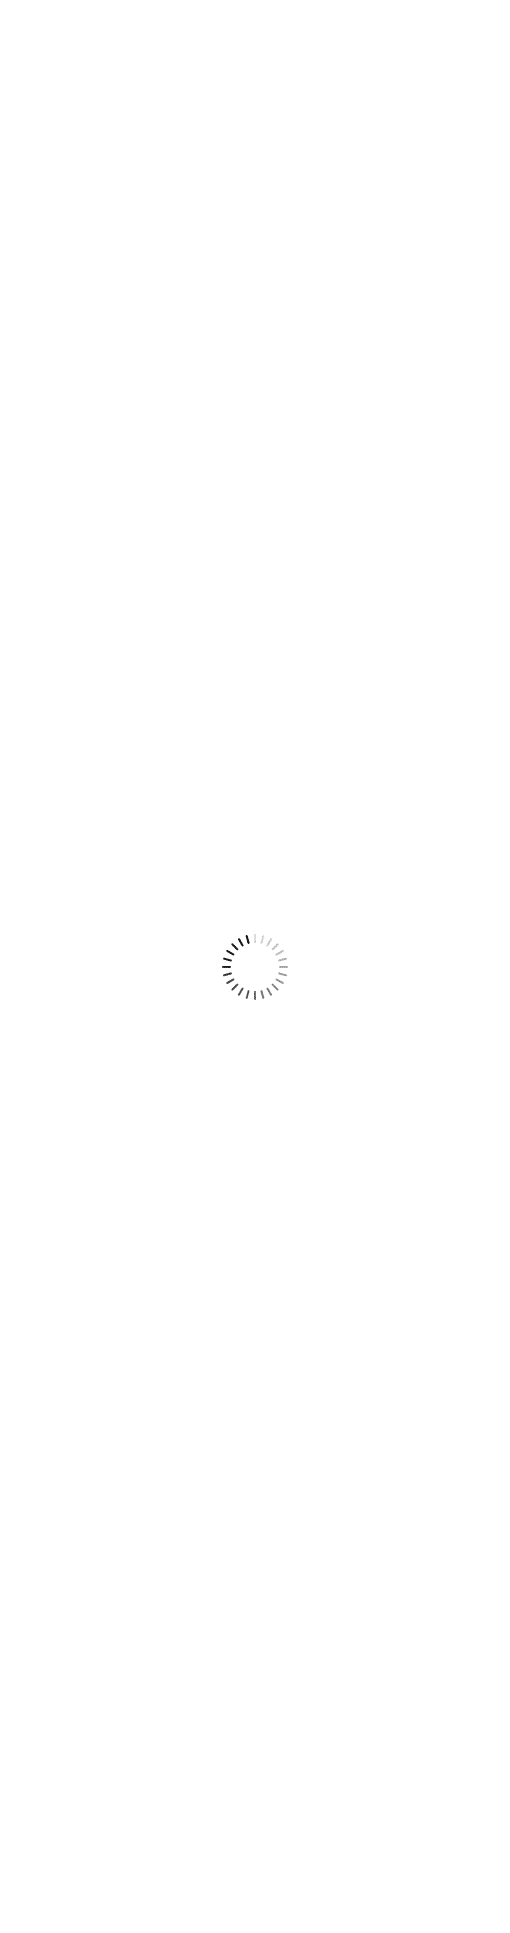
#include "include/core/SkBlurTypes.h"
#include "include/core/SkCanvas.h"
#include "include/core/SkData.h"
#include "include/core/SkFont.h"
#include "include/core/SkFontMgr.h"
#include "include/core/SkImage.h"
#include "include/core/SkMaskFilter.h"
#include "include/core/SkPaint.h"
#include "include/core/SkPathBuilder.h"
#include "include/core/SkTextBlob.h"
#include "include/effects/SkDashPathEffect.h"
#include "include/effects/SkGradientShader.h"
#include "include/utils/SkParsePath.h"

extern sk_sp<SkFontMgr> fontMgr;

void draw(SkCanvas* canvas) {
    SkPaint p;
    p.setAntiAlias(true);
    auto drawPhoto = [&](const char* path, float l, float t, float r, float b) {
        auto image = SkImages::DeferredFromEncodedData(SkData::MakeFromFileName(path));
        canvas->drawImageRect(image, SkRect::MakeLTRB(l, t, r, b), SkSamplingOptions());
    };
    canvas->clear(0xFFFFFFFF);
    drawPhoto("media/1.png", 222, 934, 288, 1000);
}
